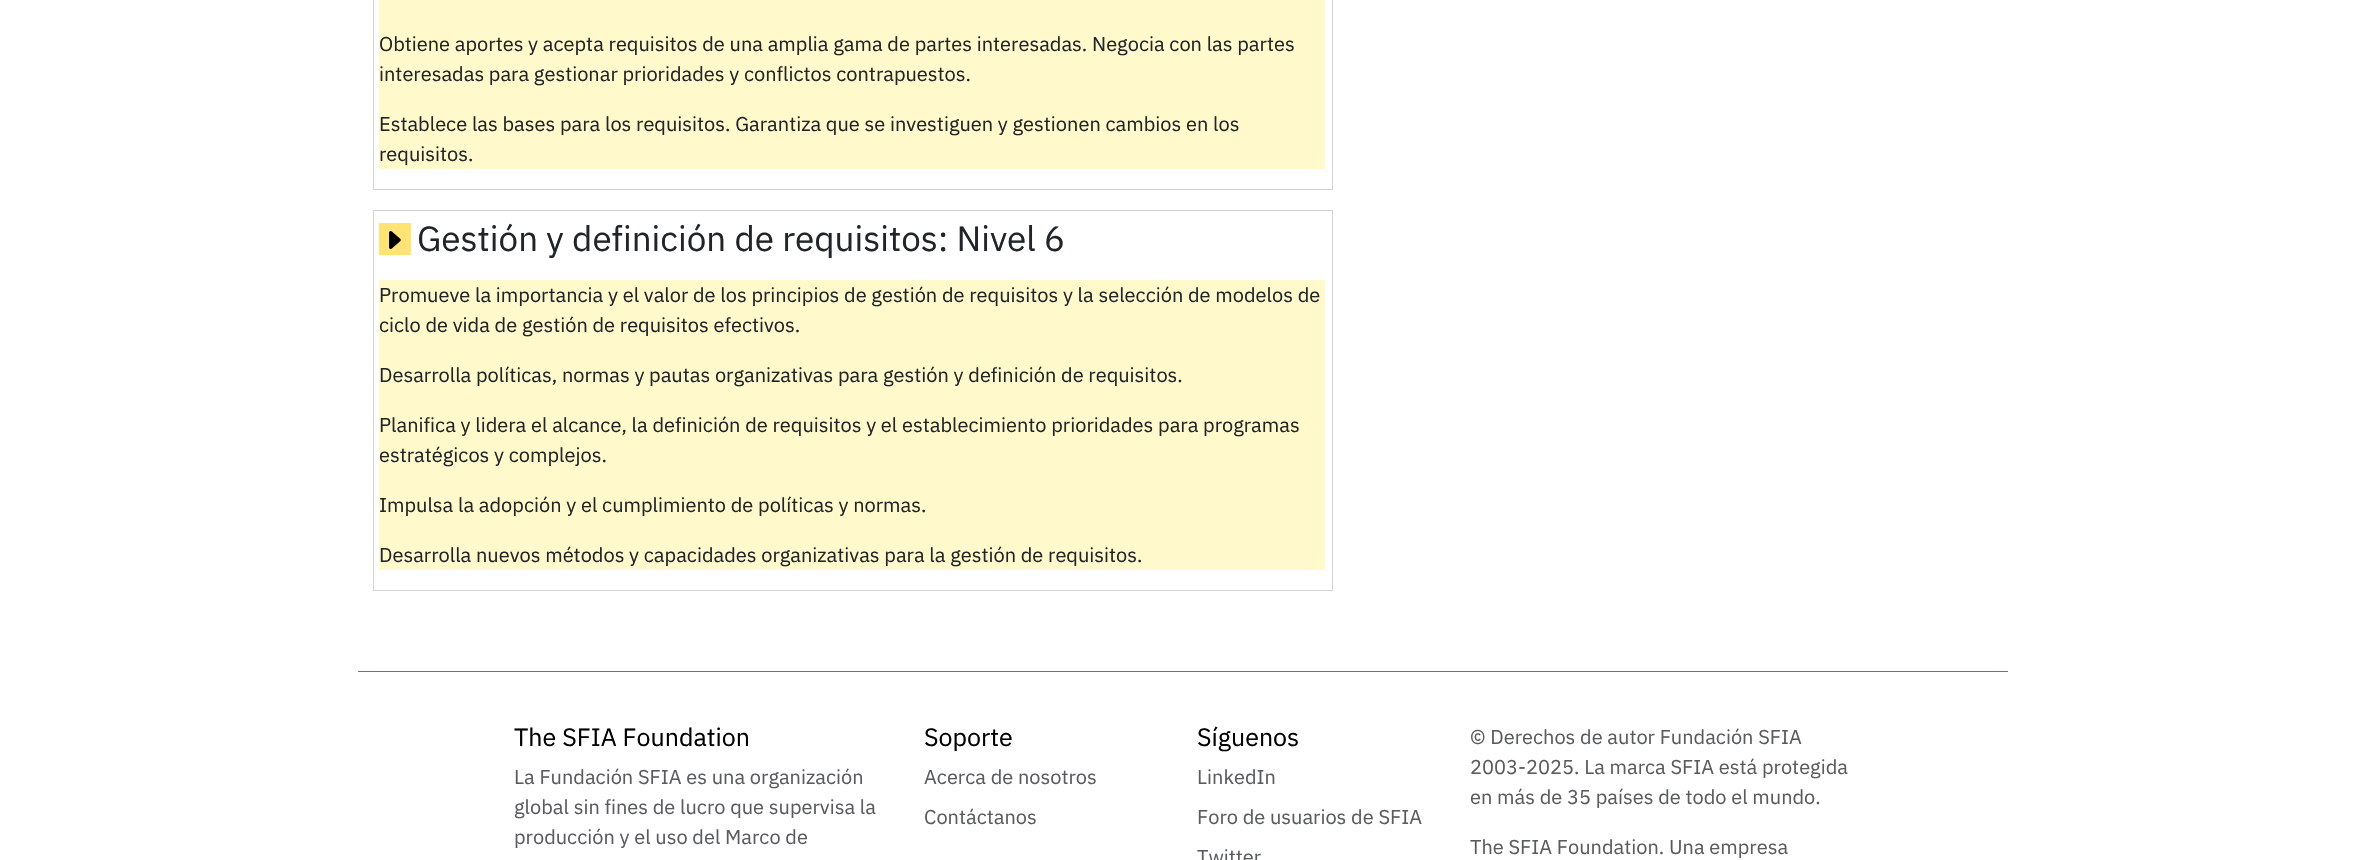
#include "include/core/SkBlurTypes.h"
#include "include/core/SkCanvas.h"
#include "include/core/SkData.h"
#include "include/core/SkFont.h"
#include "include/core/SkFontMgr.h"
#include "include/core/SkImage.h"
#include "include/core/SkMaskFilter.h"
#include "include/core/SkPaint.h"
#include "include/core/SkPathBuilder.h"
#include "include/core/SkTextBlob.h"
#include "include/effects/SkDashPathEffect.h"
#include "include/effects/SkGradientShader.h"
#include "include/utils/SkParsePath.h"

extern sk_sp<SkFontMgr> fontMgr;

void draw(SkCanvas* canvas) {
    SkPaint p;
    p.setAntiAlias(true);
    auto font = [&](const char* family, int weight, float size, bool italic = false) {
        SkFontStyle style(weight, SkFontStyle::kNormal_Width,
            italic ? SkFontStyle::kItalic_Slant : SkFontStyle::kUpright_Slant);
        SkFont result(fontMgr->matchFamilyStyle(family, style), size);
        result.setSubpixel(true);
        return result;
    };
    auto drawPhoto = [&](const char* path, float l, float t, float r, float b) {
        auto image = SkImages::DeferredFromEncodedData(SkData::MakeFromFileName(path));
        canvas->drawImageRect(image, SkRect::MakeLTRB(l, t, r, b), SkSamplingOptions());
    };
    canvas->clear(0xFFFFFFFF);
    p.setStyle(SkPaint::kStroke_Style);
    p.setStrokeWidth(1);
    p.setColor(0xFFD3D3D3);
    canvas->drawRect(SkRect::MakeLTRB(373.5f, -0.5f, 1332.5f, 189.5f), p);
    p.setStyle(SkPaint::kFill_Style);
    p.setColor(0xFFFFF9CB);
    canvas->drawRect(SkRect::MakeLTRB(379, 0, 1325, 169), p);
    auto font1 = font("IBM Plex Sans", 400, 20);
    p.setColor(0xFF212529);
    {
        const struct { const char* s; float x, y; } items[] = {
            {"Obtiene aportes y acepta requisitos de una amplia gama de partes interesadas. Negocia con las partes", 379, 51},
            {"interesadas para gestionar prioridades y conflictos contrapuestos.", 379, 81},
            {"Establece las bases para los requisitos. Garantiza que se investiguen y gestionen cambios en los", 379, 131},
            {"requisitos.", 379, 161},
        };
        for (auto [s, x, y] : items) {
            canvas->drawString(s, x, y, font1, p);
        }
    }
    p.setStyle(SkPaint::kStroke_Style);
    p.setColor(0xFFD3D3D3);
    canvas->drawRect(SkRect::MakeLTRB(373.5f, 210.5f, 1332.5f, 590.5f), p);
    p.setStyle(SkPaint::kFill_Style);
    p.setColor(0xFFFFE375);
    canvas->drawRect(SkRect::MakeLTRB(379, 223, 411, 255), p);
    drawPhoto("media/1.png", 389, 231, 401, 249);
    auto font2 = font("IBM Plex Sans", 400, 35);
    p.setColor(0xFF212529);
    canvas->drawString("Gestión y definición de requisitos: Nivel 6", 417, 251, font2, p);
    p.setColor(0xFFFFF9CB);
    canvas->drawRect(SkRect::MakeLTRB(379, 280, 1325, 570), p);
    p.setColor(0xFF212529);
    {
        const struct { const char* s; float x, y; } items[] = {
            {"Promueve la importancia y el valor de los principios de gestión de requisitos y la selección de modelos de", 379, 302},
            {"ciclo de vida de gestión de requisitos efectivos.", 379, 332},
            {"Desarrolla políticas, normas y pautas organizativas para gestión y definición de requisitos.", 379, 382},
            {"Planifica y lidera el alcance, la definición de requisitos y el establecimiento prioridades para programas", 379, 432},
            {"estratégicos y complejos.", 379, 462},
            {"Impulsa la adopción y el cumplimiento de políticas y normas.", 379, 512},
            {"Desarrolla nuevos métodos y capacidades organizativas para la gestión de requisitos.", 379, 562},
        };
        for (auto [s, x, y] : items) {
            canvas->drawString(s, x, y, font1, p);
        }
    }
    p.setColor(0xFF6C757D);
    canvas->drawRect(SkRect::MakeLTRB(358, 671, 2008, 672), p);
    auto font3 = font("IBM Plex Sans", 400, 25);
    p.setColor(0xFF000000);
    canvas->drawString("The SFIA Foundation", 514, 746, font3, p);
    p.setColor(0xFF595C5F);
    {
        const struct { const char* s; float x, y; } items[] = {
            {"La Fundación SFIA es una organización", 514, 784},
            {"global sin fines de lucro que supervisa la", 514, 814},
            {"producción y el uso del Marco de", 514, 844},
        };
        for (auto [s, x, y] : items) {
            canvas->drawString(s, x, y, font1, p);
        }
    }
    p.setColor(0xFF000000);
    canvas->drawString("Soporte", 924, 746, font3, p);
    p.setColor(0xFF595C5F);
    canvas->drawString("Acerca de nosotros", 924, 784, font1, p);
    canvas->drawString("Contáctanos", 924, 824, font1, p);
    p.setColor(0xFF000000);
    canvas->drawString("Síguenos", 1197, 746, font3, p);
    p.setColor(0xFF595C5F);
    {
        const struct { const char* s; float x, y; } items[] = {
            {"LinkedIn", 1197, 784},
            {"Foro de usuarios de SFIA", 1197, 824},
            {"Twitter", 1197, 864},
            {"© Derechos de autor Fundación SFIA", 1470, 744},
            {"2003-2025. La marca SFIA está protegida", 1470, 774},
            {"en más de 35 países de todo el mundo.", 1470, 804},
            {"The SFIA Foundation. Una empresa", 1470, 854},
        };
        for (auto [s, x, y] : items) {
            canvas->drawString(s, x, y, font1, p);
        }
    }
}
